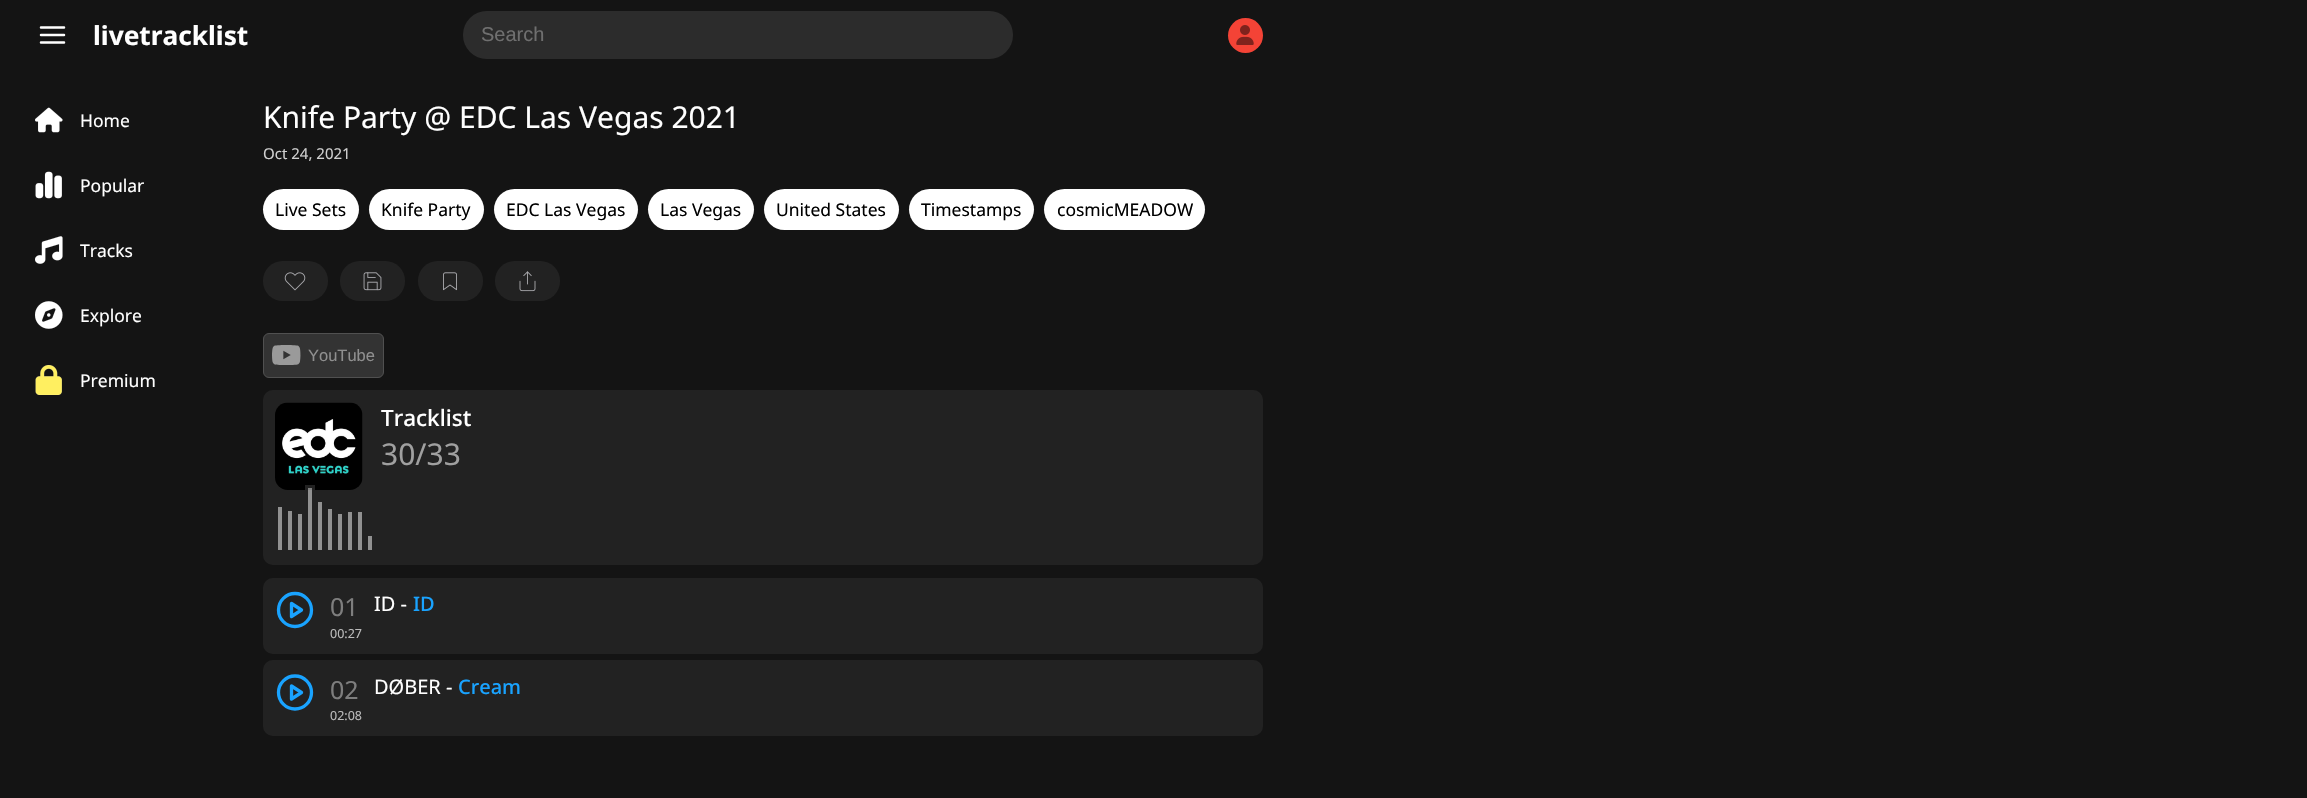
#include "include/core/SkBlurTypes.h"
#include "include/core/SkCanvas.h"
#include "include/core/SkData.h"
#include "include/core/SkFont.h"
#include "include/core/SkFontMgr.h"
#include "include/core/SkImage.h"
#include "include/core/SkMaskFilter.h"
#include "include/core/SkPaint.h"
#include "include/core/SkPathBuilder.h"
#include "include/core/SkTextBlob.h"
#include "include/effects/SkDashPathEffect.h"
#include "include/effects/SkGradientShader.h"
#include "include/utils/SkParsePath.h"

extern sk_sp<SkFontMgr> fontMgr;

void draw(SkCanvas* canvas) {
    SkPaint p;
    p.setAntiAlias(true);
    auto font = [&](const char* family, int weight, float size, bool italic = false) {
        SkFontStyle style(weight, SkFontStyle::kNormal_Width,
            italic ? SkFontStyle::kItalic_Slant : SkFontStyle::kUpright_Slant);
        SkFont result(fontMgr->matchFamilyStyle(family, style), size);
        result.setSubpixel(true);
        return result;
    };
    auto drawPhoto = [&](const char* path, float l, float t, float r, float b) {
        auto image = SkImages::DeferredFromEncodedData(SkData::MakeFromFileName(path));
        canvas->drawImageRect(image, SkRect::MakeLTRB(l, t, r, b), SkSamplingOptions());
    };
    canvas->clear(0xFF141414);
    p.setStyle(SkPaint::kStroke_Style);
    p.setStrokeWidth(2.5f);
    p.setStrokeCap(SkPaint::kRound_Cap);
    p.setStrokeJoin(SkPaint::kRound_Join);
    p.setColor(0xFFFFFFFF);
    canvas->drawPath(SkPathBuilder().moveTo(41, 35).lineTo(64, 35).moveTo(41, 27.5f).lineTo(64, 27.5f).moveTo(41, 42.5f).lineTo(64, 42.5f).detach(), p);
    auto font1 = font("Noto Sans", 700, 26.25f);
    p.setStyle(SkPaint::kFill_Style);
    canvas->drawString("livetracklist", 93, 45, font1, p);
    p.setColor(0xFF2C2C2C);
    canvas->drawRoundRect(SkRect::MakeLTRB(463, 11, 1013, 59), 24, 24, p);
    auto font2 = font("Liberation Sans", 400, 20);
    p.setColor(0xFF6F6F6F);
    canvas->drawString("Search", 481, 41, font2, p);
    p.setColor(0xFFF44336);
    canvas->drawCircle(1245.5f, 35.5f, 17.5f, p);
    drawPhoto("media/1.png", 1236, 25, 1254, 45);
    drawPhoto("media/2.png", 35, 107, 63, 133);
    auto font3 = font("Noto Sans", 400, 17.5f);
    p.setColor(0xFFFFFFFF);
    canvas->drawString("Home", 80, 127, font3, p);
    drawPhoto("media/3.png", 35, 171, 62, 199);
    canvas->drawString("Popular", 80, 192, font3, p);
    drawPhoto("media/4.png", 35, 236, 63, 264);
    canvas->drawString("Tracks", 80, 257, font3, p);
    drawPhoto("media/5.png", 35, 301, 63, 329);
    canvas->drawString("Explore", 80, 322, font3, p);
    drawPhoto("media/6.png", 35, 365, 62, 395);
    canvas->drawString("Premium", 80, 387, font3, p);
    auto font4 = font("Noto Sans", 400, 30);
    canvas->drawString("Knife Party @ EDC Las Vegas 2021", 263, 128, font4, p);
    auto font5 = font("Noto Sans", 400, 15);
    p.setColor(0xFFD0D0D0);
    canvas->drawString("Oct 24, 2021", 263, 159, font5, p);
    p.setColor(0xFFFFFFFF);
    canvas->drawRoundRect(SkRect::MakeLTRB(263, 189, 359, 230), 20.5f, 20.5f, p);
    p.setColor(0xFF000000);
    canvas->drawString("Live Sets", 275, 216, font3, p);
    p.setColor(0xFFFFFFFF);
    canvas->drawRoundRect(SkRect::MakeLTRB(369, 189, 484, 230), 20.5f, 20.5f, p);
    p.setColor(0xFF000000);
    canvas->drawString("Knife Party", 381, 216, font3, p);
    p.setColor(0xFFFFFFFF);
    canvas->drawRoundRect(SkRect::MakeLTRB(494, 189, 638, 230), 20.5f, 20.5f, p);
    p.setColor(0xFF000000);
    canvas->drawString("EDC Las Vegas", 506, 216, font3, p);
    p.setColor(0xFFFFFFFF);
    canvas->drawRoundRect(SkRect::MakeLTRB(648, 189, 754, 230), 20.5f, 20.5f, p);
    p.setColor(0xFF000000);
    canvas->drawString("Las Vegas", 660, 216, font3, p);
    p.setColor(0xFFFFFFFF);
    canvas->drawRoundRect(SkRect::MakeLTRB(764, 189, 899, 230), 20.5f, 20.5f, p);
    p.setColor(0xFF000000);
    canvas->drawString("United States", 776, 216, font3, p);
    p.setColor(0xFFFFFFFF);
    canvas->drawRoundRect(SkRect::MakeLTRB(909, 189, 1034, 230), 20.5f, 20.5f, p);
    p.setColor(0xFF000000);
    canvas->drawString("Timestamps", 921, 216, font3, p);
    p.setColor(0xFFFFFFFF);
    canvas->drawRoundRect(SkRect::MakeLTRB(1044, 189, 1205, 230), 20.5f, 20.5f, p);
    p.setColor(0xFF000000);
    canvas->drawString("cosmicMEADOW", 1057, 216, font3, p);
    p.setColor(0xFF222222);
    canvas->drawRoundRect(SkRect::MakeLTRB(263, 261, 328, 301), 20, 20, p);
    drawPhoto("media/7.png", 284, 272, 306, 291);
    canvas->drawRoundRect(SkRect::MakeLTRB(340, 261, 405, 301), 20, 20, p);
    drawPhoto("media/8.png", 363, 272, 382, 291);
    canvas->drawRoundRect(SkRect::MakeLTRB(418, 261, 483, 301), 20, 20, p);
    drawPhoto("media/9.png", 443, 272, 457, 291);
    canvas->drawRoundRect(SkRect::MakeLTRB(495, 261, 560, 301), 20, 20, p);
    drawPhoto("media/10.png", 519, 271, 536, 292);
    p.setColor(0xFF333333);
    canvas->drawRoundRect(SkRect::MakeLTRB(263.5f, 333.5f, 383.5f, 377.5f), 5.5f, 5.5f, p);
    p.setStyle(SkPaint::kStroke_Style);
    p.setStrokeWidth(1);
    p.setStrokeCap(SkPaint::kButt_Cap);
    p.setStrokeJoin(SkPaint::kMiter_Join);
    p.setColor(0xFF505050);
    canvas->drawRoundRect(SkRect::MakeLTRB(263.5f, 333.5f, 383.5f, 377.5f), 5.5f, 5.5f, p);
    drawPhoto("media/11.png", 272, 345, 301, 365);
    auto font6 = font("Liberation Sans", 400, 16.5f);
    p.setStyle(SkPaint::kFill_Style);
    p.setColor(0xFF8F8F8F);
    canvas->drawString("YouTube", 308, 361, font6, p);
    p.setColor(0xFF222222);
    canvas->drawRoundRect(SkRect::MakeLTRB(263, 390, 1263, 565), 10, 10, p);
    drawPhoto("media/12.png", 275, 402, 363, 490);
    auto font7 = font("Noto Sans", 500, 22.5f);
    p.setColor(0xFFFFFFFF);
    canvas->drawString("Tracklist", 381, 426, font7, p);
    p.setColor(0xFFA0A0A0);
    canvas->drawString("30/33", 381, 465, font4, p);
    {
        const struct { float l, t, r, b; SkColor color; } items[] = {
            {278, 507, 282, 550, 0xFF919191},
            {288, 511, 292, 550, 0xFF919191},
            {298, 514, 302, 550, 0xFF919191},
        };
        for (auto [l, t, r, b, color] : items) {
            p.setColor(color);
            canvas->drawRect(SkRect::MakeLTRB(l, t, r, b), p);
        }
    }
    p.setColor(0x80FFFFFF);
    canvas->drawRect(SkRect::MakeLTRB(306.5f, 486.5f, 313.5f, 551.5f), p);
    p.setStyle(SkPaint::kStroke_Style);
    p.setStrokeWidth(3);
    p.setColor(0xFF222222);
    canvas->drawRect(SkRect::MakeLTRB(306.5f, 486.5f, 313.5f, 551.5f), p);
    p.setStyle(SkPaint::kFill_Style);
    {
        const struct { float l, t, r, b; SkColor color; } items[] = {
            {318, 502, 322, 550, 0xFF919191},
            {328, 509, 332, 550, 0xFF919191},
            {338, 514, 342, 550, 0xFF919191},
            {348, 512, 352, 550, 0xFF919191},
            {358, 512, 362, 550, 0xFF919191},
            {368, 536, 372, 550, 0xFF919191},
        };
        for (auto [l, t, r, b, color] : items) {
            p.setColor(color);
            canvas->drawRect(SkRect::MakeLTRB(l, t, r, b), p);
        }
    }
    p.setColor(0xFF222222);
    canvas->drawRoundRect(SkRect::MakeLTRB(263, 578, 1263, 654), 10, 10, p);
    p.setStyle(SkPaint::kStroke_Style);
    p.setStrokeWidth(3.3f);
    p.setColor(0xFF19A3FF);
    canvas->drawCircle(295, 610, 16.5f, p);
    p.setStrokeCap(SkPaint::kRound_Cap);
    p.setStrokeJoin(SkPaint::kRound_Join);
    canvas->drawPath(SkPathBuilder().moveTo(291.5f, 603.5f).lineTo(301.5f, 610).lineTo(291.5f, 616.5f).close().detach(), p);
    auto font8 = font("Noto Sans", 400, 25);
    p.setStyle(SkPaint::kFill_Style);
    p.setColor(0xFF7E7E7E);
    canvas->drawString("01", 330, 616, font8, p);
    auto font9 = font("Noto Sans", 400, 12.5f);
    p.setColor(0xFFBBBBBB);
    canvas->drawString("00:27", 330, 638, font9, p);
    auto font10 = font("Noto Sans", 400, 20);
    p.setColor(0xFFFFFFFF);
    canvas->drawString("ID -", 374, 611, font10, p);
    auto font11 = font("Noto Sans", 500, 20);
    p.setColor(0xFF19A3FF);
    canvas->drawString("ID", 413, 611, font11, p);
    p.setColor(0xFF222222);
    canvas->drawRoundRect(SkRect::MakeLTRB(263, 660, 1263, 736), 10, 10, p);
    p.setStyle(SkPaint::kStroke_Style);
    p.setStrokeCap(SkPaint::kButt_Cap);
    p.setStrokeJoin(SkPaint::kMiter_Join);
    p.setColor(0xFF19A3FF);
    canvas->drawCircle(295, 692.5f, 16.5f, p);
    p.setStrokeCap(SkPaint::kRound_Cap);
    p.setStrokeJoin(SkPaint::kRound_Join);
    canvas->drawPath(SkPathBuilder().moveTo(291.5f, 686).lineTo(301.5f, 692.5f).lineTo(291.5f, 699).close().detach(), p);
    p.setStyle(SkPaint::kFill_Style);
    p.setColor(0xFF7E7E7E);
    canvas->drawString("02", 330, 699, font8, p);
    p.setColor(0xFFBBBBBB);
    canvas->drawString("02:08", 330, 720, font9, p);
    p.setColor(0xFFFFFFFF);
    canvas->drawString("DØBER -", 374, 694, font10, p);
    p.setColor(0xFF19A3FF);
    canvas->drawString("Cream", 458, 694, font11, p);
}
